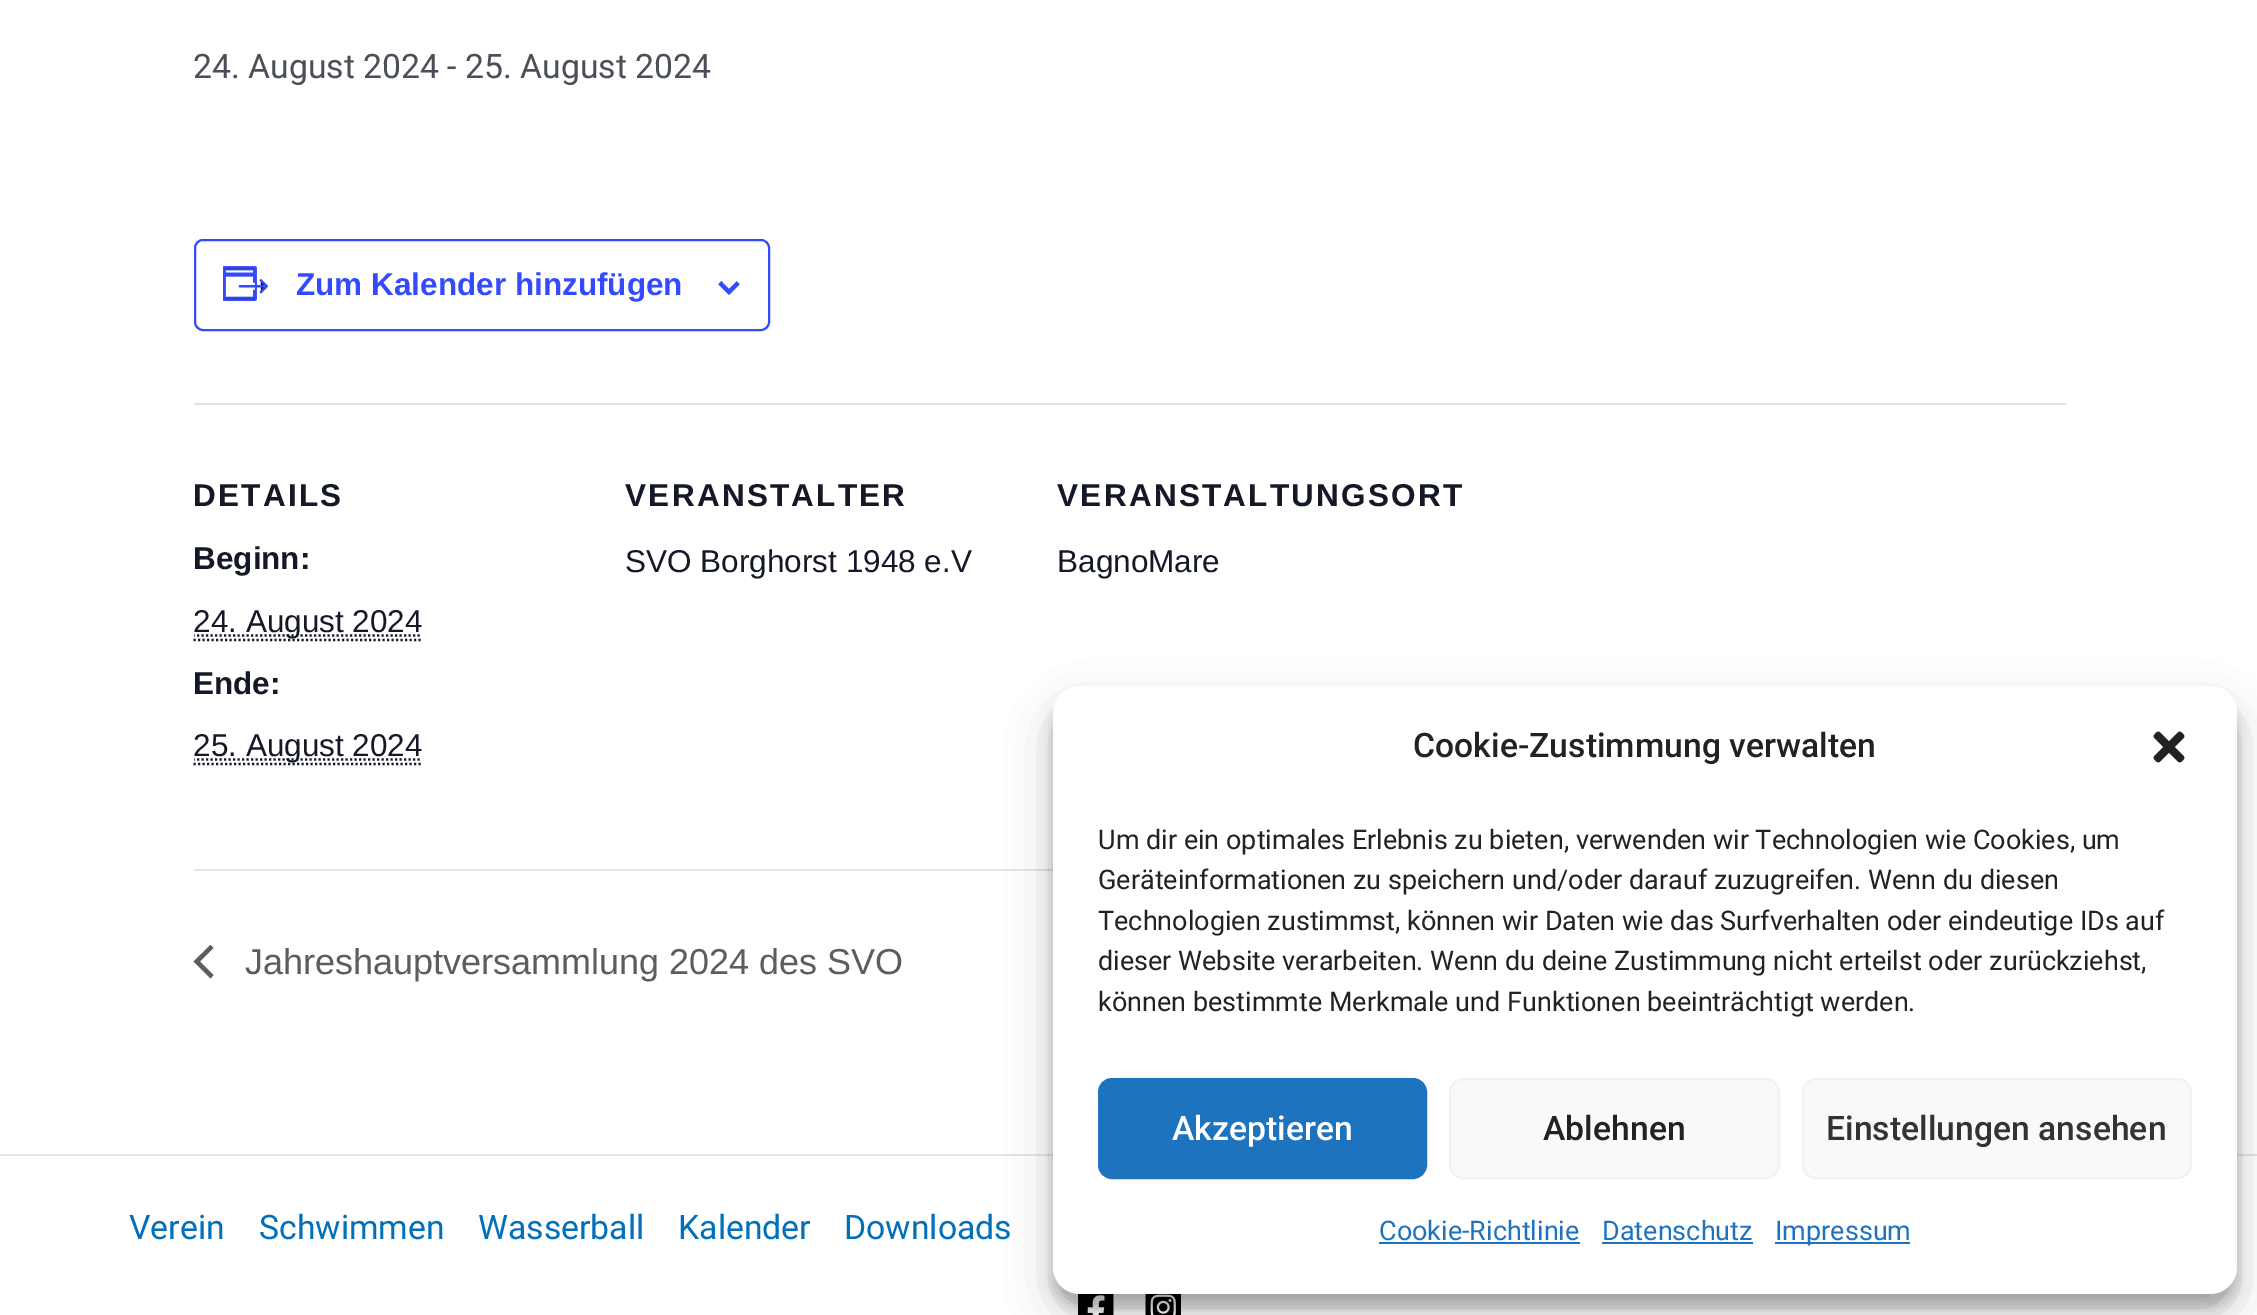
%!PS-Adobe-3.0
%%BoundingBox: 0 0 2257 1315
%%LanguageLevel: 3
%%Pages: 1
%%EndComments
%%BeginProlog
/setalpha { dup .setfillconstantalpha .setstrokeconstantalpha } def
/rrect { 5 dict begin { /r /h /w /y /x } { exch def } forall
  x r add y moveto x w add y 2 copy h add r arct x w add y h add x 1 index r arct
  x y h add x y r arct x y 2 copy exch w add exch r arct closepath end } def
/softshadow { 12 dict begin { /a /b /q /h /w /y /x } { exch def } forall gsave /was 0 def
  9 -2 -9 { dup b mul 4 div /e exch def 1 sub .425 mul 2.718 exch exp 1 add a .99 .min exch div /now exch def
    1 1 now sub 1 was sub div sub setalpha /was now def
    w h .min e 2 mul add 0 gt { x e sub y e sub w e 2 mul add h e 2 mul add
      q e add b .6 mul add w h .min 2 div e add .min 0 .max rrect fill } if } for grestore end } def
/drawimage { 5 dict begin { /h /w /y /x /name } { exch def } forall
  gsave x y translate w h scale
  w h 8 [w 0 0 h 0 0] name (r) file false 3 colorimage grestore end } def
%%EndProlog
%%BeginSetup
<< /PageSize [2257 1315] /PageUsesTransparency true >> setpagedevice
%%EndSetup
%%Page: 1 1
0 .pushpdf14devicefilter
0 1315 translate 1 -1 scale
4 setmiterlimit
1 setgray
0 0 2257 1315 rectfill
0.2 0.29 1 setrgbcolor
2 setlinewidth
195 240 574 90 8 rrect stroke
(images/1.raw) 223 266 45 35 drawimage
(images/2.raw) 718 281 22 14 drawimage
0.894 setgray
194 403 1872 2 rectfill
0.078 0.094 0.153 setrgbcolor
2.2 setlinewidth
[2.25 2.25] 0 setdash
newpath 193.5 640 moveto 423 640 lineto stroke
gsave
194 167 1872 652 rectclip
newpath 192.5 635.5 moveto 422 635.5 lineto stroke
grestore
newpath 193.5 764 moveto 423 764 lineto stroke
gsave
194 167 1872 652 rectclip
newpath 192.5 759.5 moveto 422 759.5 lineto stroke
grestore
0.894 setgray
194 869 859 2 rectfill
0.365 setgray
newpath 213.5 975 moveto 210.5 978.5 lineto 193.5 961.5 lineto 210.5 945 lineto 213.5 948 lineto 200 961.5 lineto closepath fill
0.898 setgray
0 1154 2257 2 rectfill
(images/3.raw) 1078 1293 36 22 drawimage
(images/4.raw) 1145 1294 36 21 drawimage
0 setgray
1053 700 1184 607 27 7 0.23 softshadow
1053 709 1184 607 27 22.5 0.19 softshadow
1 setgray
1053 686 1184 608 27 rrect fill
(images/5.raw) 2153 731 32 32 drawimage
0.118 0.451 0.745 setrgbcolor
1099 1079 327 99 13 rrect gsave fill grestore
2 setlinewidth
[] 0 setdash
stroke
0.976 setgray
1450 1079 329 99 13 rrect gsave fill grestore
0.949 setgray
stroke
0.976 setgray
1803 1079 388 99 13 rrect gsave fill grestore
0.949 setgray
stroke
0.118 0.451 0.745 setrgbcolor
1379 1242 201 2 rectfill
1602 1242 151 2 rectfill
1775 1242 135 2 rectfill
/Roboto-Regular [33.75 0 0 -33.75 0 0] selectfont
0.294 0.31 0.345 setrgbcolor
193 78 moveto (24. August 2024 - 25. August 2024) show
/LiberationSans-Bold [31.5 0 0 -31.5 0 0] selectfont
0.2 0.29 1 setrgbcolor
296 295 moveto (Zum Kalender hinzufügen) show
0.078 0.094 0.153 setrgbcolor
193 506 moveto 2.25 0 (DETAILS) ashow
193 569 moveto (Beginn:) show
/LiberationSans-Regular [31.5 0 0 -31.5 0 0] selectfont
193 632 moveto (24. August 2024) show
/LiberationSans-Bold [31.5 0 0 -31.5 0 0] selectfont
193 694 moveto (Ende:) show
/LiberationSans-Regular [31.5 0 0 -31.5 0 0] selectfont
193 756 moveto (25. August 2024) show
/LiberationSans-Bold [31.5 0 0 -31.5 0 0] selectfont
625 506 moveto 2.25 0 (VERANSTALTER) ashow
/LiberationSans-Regular [31.5 0 0 -31.5 0 0] selectfont
625 572 moveto (SVO Borghorst 1948 e.V) show
/LiberationSans-Bold [31.5 0 0 -31.5 0 0] selectfont
1057 506 moveto 2.25 0 (VERANSTALTUNGSORT) ashow
/LiberationSans-Regular [31.5 0 0 -31.5 0 0] selectfont
1057 572 moveto (BagnoMare) show
/LiberationSans-Regular [36 0 0 -36 0 0] selectfont
0.365 setgray
245 974 moveto (Jahreshauptversammlung 2024 des SVO) show
/Roboto-Regular [33.75 0 0 -33.75 0 0] selectfont
0.004 0.439 0.725 setrgbcolor
129 1239 moveto (Verein) show
259 1239 moveto (Schwimmen) show
478 1239 moveto (Wasserball) show
678 1239 moveto (Kalender) show
844 1239 moveto (Downloads) show
/Roboto-Medium [33.75 0 0 -33.75 0 0] selectfont
0.133 setgray
1413 757 moveto (Cookie-Zustimmung verwalten) show
/Roboto-Regular [27 0 0 -27 0 0] selectfont
1098 849 moveto (Um dir ein optimales Erlebnis zu bieten, verwenden wir Technologien wie Cookies, um) show
1098 889 moveto (Geräteinformationen zu speichern und/oder darauf zuzugreifen. Wenn du diesen) show
1098 930 moveto (Technologien zustimmst, können wir Daten wie das Surfverhalten oder eindeutige IDs auf) show
1098 970 moveto (dieser Website verarbeiten. Wenn du deine Zustimmung nicht erteilst oder zurückziehst,) show
1098 1011 moveto (können bestimmte Merkmale und Funktionen beeinträchtigt werden.) show
/Roboto-Medium [33.75 0 0 -33.75 0 0] selectfont
1 setgray
1172 1140 moveto (Akzeptieren) show
0.133 setgray
1543 1140 moveto (Ablehnen) show
0.2 setgray
1826 1140 moveto (Einstellungen ansehen) show
/Roboto-Regular [27 0 0 -27 0 0] selectfont
0.118 0.451 0.745 setrgbcolor
1379 1240 moveto (Cookie-Richtlinie) show
1602 1240 moveto (Datenschutz) show
1775 1240 moveto (Impressum) show
.poppdf14devicefilter showpage
%%EOF
